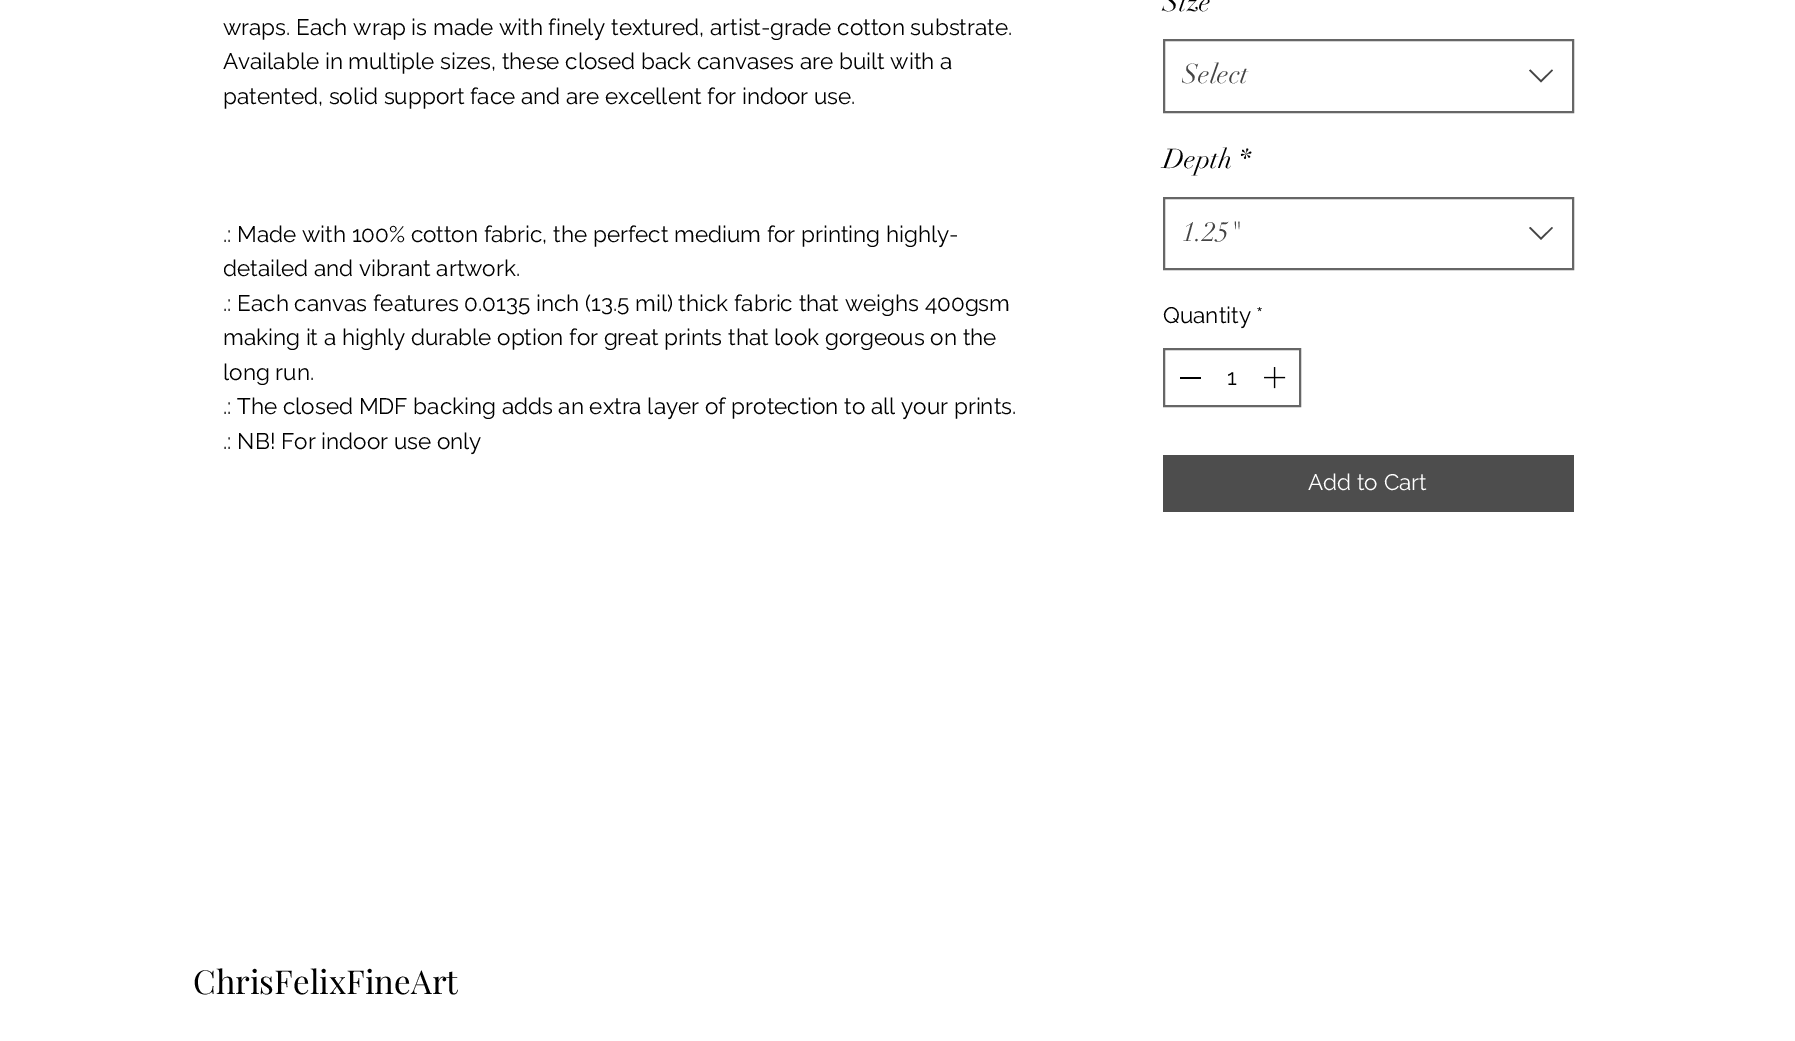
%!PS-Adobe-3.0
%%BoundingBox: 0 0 1795 1041
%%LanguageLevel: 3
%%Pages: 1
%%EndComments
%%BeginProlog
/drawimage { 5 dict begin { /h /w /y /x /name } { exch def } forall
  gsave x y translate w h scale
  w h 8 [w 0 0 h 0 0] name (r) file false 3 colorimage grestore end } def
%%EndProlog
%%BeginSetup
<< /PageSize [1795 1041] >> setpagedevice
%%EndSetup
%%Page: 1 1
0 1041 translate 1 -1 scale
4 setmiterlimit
1 setgray
0 0 1795 1041 rectfill
0.4 setgray
2 setlinewidth
1164 40 409 72 rectstroke
0.267 setgray
newpath 1552 69.5 moveto 1553 70.5 lineto 1541 82.5 lineto 1529 70.5 lineto 1530.5 69.5 lineto 1541 80 lineto closepath eofill
0.4 setgray
1164 198 409 71 rectstroke
0.267 setgray
newpath 1552 227 moveto 1553 228 lineto 1541 240 lineto 1529 228 lineto 1530.5 227 lineto 1541 237.5 lineto closepath eofill
0.4 setgray
1164 349 136 57 rectstroke
0 setgray
1180 377 21 2 rectfill
(images/1.raw) 1264 367 22 22 drawimage
0.302 setgray
1163 455 411 57 rectfill
/Raleway-Regular [22.5 0 0 -22.5 0 0] selectfont
0 setgray
223 35 moveto (wraps. Each wrap is made with finely textured, artist-grade cotton substrate.) show
223 69 moveto (Available in multiple sizes, these closed back canvases are built with a) show
223 104 moveto (patented, solid support face and are excellent for indoor use.) show
223 242 moveto (.: Made with 100% cotton fabric, the perfect medium for printing highly-) show
gsave
224 0 819 459 rectclip
223 276 moveto (detailed and vibrant artwork.) show
grestore
223 311 moveto (.: Each canvas features 0.0135 inch \(13.5 mil\) thick fabric that weighs 400gsm) show
223 345 moveto (making it a highly durable option for great prints that look gorgeous on the) show
223 380 moveto (long run.) show
223 414 moveto (.: The closed MDF backing adds an extra layer of protection to all your prints.) show
223 449 moveto (.: NB! For indoor use only) show
/didot-Regular [27 0 0 -27 0 0] selectfont
1163 11 moveto (Size) show
gsave
1182 53 333 46 rectclip
0.267 setgray
1182 83 moveto (Select) show
grestore
1163 168 moveto (Depth) show
1239 168 moveto (*) show
0.267 setgray
1182 241 moveto (1.25") show
/Raleway-Regular [22.5 0 0 -22.5 0 0] selectfont
0 setgray
1163 323 moveto (Quantity *) show
1227 385 moveto (1) show
1 setgray
1308 490 moveto (Add to Cart) show
/PlayfairDisplay-Regular [33 0 0 -33 0 0] selectfont
0 setgray
193 994 moveto (ChrisFelixFineArt) show
showpage
%%EOF
